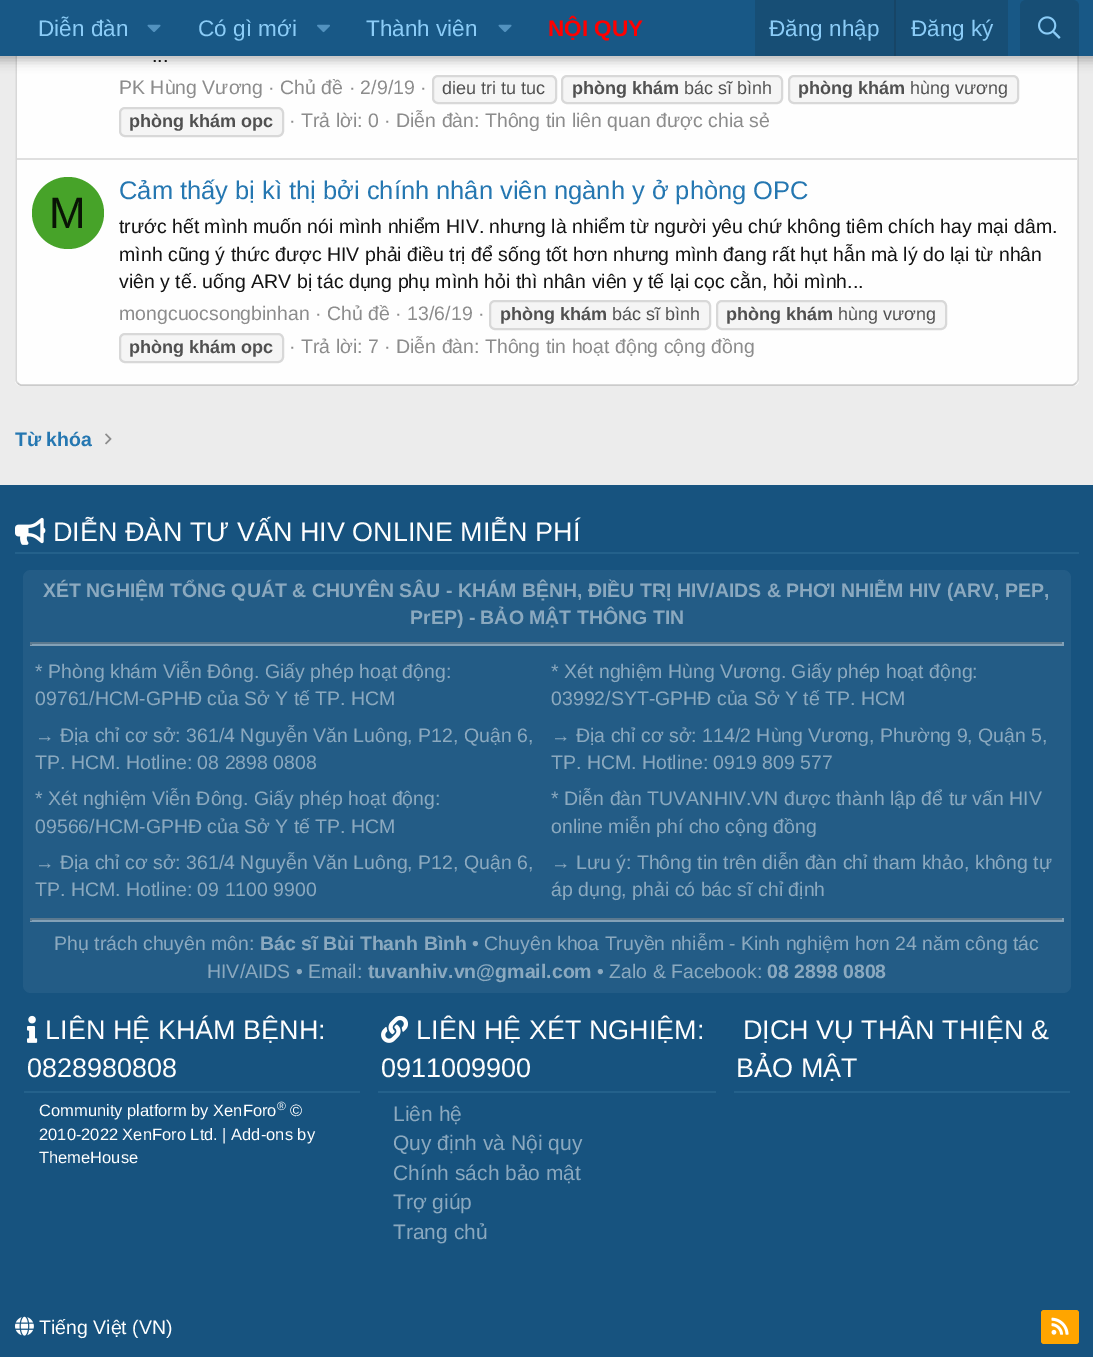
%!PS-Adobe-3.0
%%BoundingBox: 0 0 1093 1357
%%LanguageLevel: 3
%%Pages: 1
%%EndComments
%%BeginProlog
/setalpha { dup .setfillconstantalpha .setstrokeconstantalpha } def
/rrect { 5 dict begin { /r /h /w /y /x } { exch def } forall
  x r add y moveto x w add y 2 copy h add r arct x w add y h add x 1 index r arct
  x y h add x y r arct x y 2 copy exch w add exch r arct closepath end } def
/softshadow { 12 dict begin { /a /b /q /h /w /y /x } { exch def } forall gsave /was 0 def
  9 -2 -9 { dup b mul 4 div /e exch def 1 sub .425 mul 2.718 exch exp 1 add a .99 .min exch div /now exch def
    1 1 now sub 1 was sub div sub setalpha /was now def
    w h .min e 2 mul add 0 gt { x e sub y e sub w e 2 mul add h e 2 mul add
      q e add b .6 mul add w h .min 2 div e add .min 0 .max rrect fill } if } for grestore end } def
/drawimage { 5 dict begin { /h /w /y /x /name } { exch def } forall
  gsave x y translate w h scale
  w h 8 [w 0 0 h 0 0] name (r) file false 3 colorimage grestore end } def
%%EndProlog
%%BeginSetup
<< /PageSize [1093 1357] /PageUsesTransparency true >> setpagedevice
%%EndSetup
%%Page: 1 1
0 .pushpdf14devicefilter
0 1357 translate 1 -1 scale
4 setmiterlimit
0.925 setgray
0 0 1093 1357 rectfill
0.996 setgray
15 -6 1064 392 6 rrect fill
0.847 setgray
1.5 setlinewidth
newpath 1076 -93.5 moveto 1077 -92.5 1078 -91.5 1078 -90 curveto 1078 379.5 lineto 1078 381 1077 382 1076 383 curveto stroke
0.796 setgray
newpath 1076 383 moveto 1075 384 1074 385 1072.5 385 curveto 21 385 lineto 19.5 385 18.5 384 17.5 383 curveto stroke
0.847 setgray
newpath 17.5 383 moveto 16.5 382 16 381 16 379.5 curveto 16 -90 lineto 16 -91.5 16.5 -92.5 17.5 -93.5 curveto stroke
0.961 setgray
433 76 123 27 5 rrect gsave fill grestore
0.847 setgray
2 setlinewidth
stroke
0.961 setgray
562 76 220 27 5 rrect gsave fill grestore
0.847 setgray
stroke
0.961 setgray
789 76 229 27 5 rrect gsave fill grestore
0.847 setgray
stroke
0 setgray
-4 -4 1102 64 0 6 0.3 softshadow
0.094 0.345 0.525 setrgbcolor
0 0 1093 56 rectfill
(images/1.raw) 147 24 14 8 drawimage
(images/2.raw) 317 24 13 9 drawimage
(images/1.raw) 498 24 14 8 drawimage
0.09 0.306 0.459 setrgbcolor
755 0 253 56 rectfill
0.09 0.271 0.4 setrgbcolor
894 0 2 56 rectfill
0.09 0.306 0.459 setrgbcolor
newpath 1026 0 moveto 1073 0 lineto 1076.5 0 1079 2.5 1079 6 curveto 1079 56 lineto 1020 56 lineto 1020 6 lineto 1020 2.5 1022.5 0 1026 0 curveto closepath fill
(images/3.raw) 1038 16 23 23 drawimage
0.961 setgray
120 108 163 28 5 rrect gsave fill grestore
0.847 setgray
stroke
0.875 setgray
17 158 1060 2 rectfill
0.278 0.639 0.161 setrgbcolor
newpath 68 213 36 0 360 arc closepath fill
0.961 setgray
490 301 220 28 5 rrect gsave fill grestore
0.847 setgray
stroke
0.961 setgray
717 301 229 28 5 rrect gsave fill grestore
0.847 setgray
stroke
0.961 setgray
120 334 163 28 5 rrect gsave fill grestore
0.847 setgray
stroke
(images/4.raw) 105 433 7 12 drawimage
0.09 0.325 0.498 setrgbcolor
0 485 1093 872 rectfill
0.141 0.38 0.545 setrgbcolor
15 552 1064 2 rectfill
(images/5.raw) 15 517 31 28 drawimage
0.137 0.361 0.525 setrgbcolor
23 570 1048 423 8 rrect fill
0.357 0.475 0.561 setrgbcolor
30 642 1034 2 rectfill
0.514 0.631 0.718 setrgbcolor
1062 642 2 3 rectfill
30 644 1034 2 rectfill
0.357 0.475 0.561 setrgbcolor
30 642 2 3 rectfill
30 918 1034 2 rectfill
0.514 0.631 0.718 setrgbcolor
1062 918 2 3 rectfill
30 920 1034 2 rectfill
0.357 0.475 0.561 setrgbcolor
30 918 2 3 rectfill
0.141 0.38 0.545 setrgbcolor
24 1091 336 2 rectfill
(images/6.raw) 27 1015 11 28 drawimage
378 1091 338 2 rectfill
(images/7.raw) 381 1015 27 28 drawimage
734 1091 336 2 rectfill
(images/8.raw) 15 1316 19 20 drawimage
1 0.647 0 setrgbcolor
1041 1310 38 34 3 rrect fill
(images/9.raw) 1051 1317 18 18 drawimage
/LiberationSans-Regular [22.5 0 0 -22.5 0 0] selectfont
0.545 0.8 0.969 setrgbcolor
38 36 moveto (Diễn đàn) show
198 36 moveto (Có gì mới) show
366 36 moveto (Thành viên) show
/LiberationSans-Bold [22.5 0 0 -22.5 0 0] selectfont
1 0 0 setrgbcolor
548 36 moveto (NỘI QUY) show
/LiberationSans-Regular [22.5 0 0 -22.5 0 0] selectfont
0.545 0.8 0.969 setrgbcolor
769 36 moveto (Đăng nhập) show
911 36 moveto (Đăng ký) show
/LiberationSans-Regular [19.5 0 0 -19.5 0 0] selectfont
0.078 setgray
152 62 moveto (...) show
0.549 setgray
119 94 moveto (PK Hùng Vương · Chủ đề · 2/9/19 ·) show
/LiberationSans-Regular [18 0 0 -18 0 0] selectfont
0.314 setgray
442 94 moveto (dieu tri tu tuc) show
/LiberationSans-Bold [18 0 0 -18 0 0] selectfont
572 94 moveto (phòng khám) show
/LiberationSans-Regular [18 0 0 -18 0 0] selectfont
684 94 moveto (bác sĩ bình) show
/LiberationSans-Bold [18 0 0 -18 0 0] selectfont
798 94 moveto (phòng khám) show
/LiberationSans-Regular [18 0 0 -18 0 0] selectfont
910 94 moveto (hùng vương) show
/LiberationSans-Bold [18 0 0 -18 0 0] selectfont
129 127 moveto (phòng khám opc) show
/LiberationSans-Regular [19.5 0 0 -19.5 0 0] selectfont
0.549 setgray
289 127 moveto (· Trả lời: 0 · Diễn đàn: Thông tin liên quan được chia sẻ) show
/LiberationSans-Regular [44 0 0 -44 0 0] selectfont
0.035 0.078 0.02 setrgbcolor
49 228 moveto (M) show
/LiberationSans-Regular [25.5 0 0 -25.5 0 0] selectfont
0.145 0.467 0.694 setrgbcolor
119 199 moveto (Cảm thấy bị kì thị bởi chính nhân viên ngành y ở phòng OPC) show
/LiberationSans-Regular [19.5 0 0 -19.5 0 0] selectfont
0.078 setgray
119 233 moveto (trước hết mình muốn nói mình nhiểm HIV. nhưng là nhiểm từ người yêu chứ không tiêm chích hay mại dâm.) show
119 261 moveto (mình cũng ý thức được HIV phải điều trị để sống tốt hơn nhưng mình đang rất hụt hẫn mà lý do lại từ nhân) show
119 288 moveto (viên y tế. uống ARV bị tác dụng phụ mình hỏi thì nhân viên y tế lại cọc cằn, hỏi mình...) show
0.549 setgray
119 320 moveto (mongcuocsongbinhan · Chủ đề · 13/6/19 ·) show
/LiberationSans-Bold [18 0 0 -18 0 0] selectfont
0.314 setgray
500 320 moveto (phòng khám) show
/LiberationSans-Regular [18 0 0 -18 0 0] selectfont
612 320 moveto (bác sĩ bình) show
/LiberationSans-Bold [18 0 0 -18 0 0] selectfont
726 320 moveto (phòng khám) show
/LiberationSans-Regular [18 0 0 -18 0 0] selectfont
838 320 moveto (hùng vương) show
/LiberationSans-Bold [18 0 0 -18 0 0] selectfont
129 353 moveto (phòng khám opc) show
/LiberationSans-Regular [19.5 0 0 -19.5 0 0] selectfont
0.549 setgray
289 353 moveto (· Trả lời: 7 · Diễn đàn: Thông tin hoạt động cộng đồng) show
/LiberationSans-Bold [19.5 0 0 -19.5 0 0] selectfont
0.145 0.467 0.694 setrgbcolor
15 446 moveto (Từ khóa) show
/LiberationSans-Regular [27 0 0 -27 0 0] selectfont
0.996 setgray
53 541 moveto (DIỄN ĐÀN TƯ VẤN HIV ONLINE MIỄN PHÍ) show
/LiberationSans-Bold [19.5 0 0 -19.5 0 0] selectfont
0.545 0.663 0.749 setrgbcolor
43 597 moveto (XÉT NGHIỆM TỔNG QUÁT & CHUYÊN SÂU - KHÁM BỆNH, ĐIỀU TRỊ HIV/AIDS & PHƠI NHIỄM HIV \(ARV, PEP,) show
410 624 moveto (PrEP\) - BẢO MẬT THÔNG TIN) show
/LiberationSans-Regular [19.5 0 0 -19.5 0 0] selectfont
35 678 moveto (* Phòng khám Viễn Đông. Giấy phép hoạt động:) show
35 705 moveto (09761/HCM-GPHĐ của Sở Y tế TP. HCM) show
35 742 moveto (→ Địa chỉ cơ sở: 361/4 Nguyễn Văn Luông, P12, Quận 6,) show
35 769 moveto (TP. HCM. Hotline: 08 2898 0808) show
35 805 moveto (* Xét nghiệm Viễn Đông. Giấy phép hoạt động:) show
35 833 moveto (09566/HCM-GPHĐ của Sở Y tế TP. HCM) show
35 869 moveto (→ Địa chỉ cơ sở: 361/4 Nguyễn Văn Luông, P12, Quận 6,) show
35 896 moveto (TP. HCM. Hotline: 09 1100 9900) show
551 678 moveto (* Xét nghiệm Hùng Vương. Giấy phép hoạt động:) show
551 705 moveto (03992/SYT-GPHĐ của Sở Y tế TP. HCM) show
551 742 moveto (→ Địa chỉ cơ sở: 114/2 Hùng Vương, Phường 9, Quận 5,) show
551 769 moveto (TP. HCM. Hotline: 0919 809 577) show
551 805 moveto (* Diễn đàn TUVANHIV.VN được thành lập để tư vấn HIV) show
551 833 moveto (online miễn phí cho cộng đồng) show
551 869 moveto (→ Lưu ý: Thông tin trên diễn đàn chỉ tham khảo, không tự) show
551 896 moveto (áp dụng, phải có bác sĩ chỉ định) show
54 950 moveto (Phụ trách chuyên môn:) show
/LiberationSans-Bold [19.5 0 0 -19.5 0 0] selectfont
260 950 moveto (Bác sĩ Bùi Thanh Bình) show
/LiberationSans-Regular [19.5 0 0 -19.5 0 0] selectfont
472 950 moveto (• Chuyên khoa Truyền nhiễm - Kinh nghiệm hơn 24 năm công tác) show
207 978 moveto (HIV/AIDS • Email:) show
/LiberationSans-Bold [19.5 0 0 -19.5 0 0] selectfont
368 978 moveto (tuvanhiv.vn@gmail.com) show
/LiberationSans-Regular [19.5 0 0 -19.5 0 0] selectfont
597 978 moveto (• Zalo & Facebook:) show
/LiberationSans-Bold [19.5 0 0 -19.5 0 0] selectfont
767 978 moveto (08 2898 0808) show
/LiberationSans-Regular [27 0 0 -27 0 0] selectfont
0.996 setgray
45 1039 moveto (LIÊN HỆ KHÁM BỆNH:) show
27 1077 moveto (0828980808) show
/LiberationSans-Regular [16.5 0 0 -16.5 0 0] selectfont
39 1116 moveto (Community platform by XenForo) show
/LiberationSans-Regular [12 0 0 -12 0 0] selectfont
277 1110 moveto (®) show
/LiberationSans-Regular [16.5 0 0 -16.5 0 0] selectfont
290 1116 moveto (©) show
39 1140 moveto (2010-2022 XenForo Ltd. | Add-ons by) show
39 1163 moveto (ThemeHouse) show
/LiberationSans-Regular [27 0 0 -27 0 0] selectfont
416 1039 moveto (LIÊN HỆ XÉT NGHIỆM:) show
381 1077 moveto (0911009900) show
/LiberationSans-Regular [21 0 0 -21 0 0] selectfont
0.545 0.663 0.749 setrgbcolor
393 1121 moveto (Liên hệ) show
393 1150 moveto (Quy định và Nội quy) show
393 1180 moveto (Chính sách bảo mật) show
393 1209 moveto (Trợ giúp) show
393 1239 moveto (Trang chủ) show
/LiberationSans-Regular [27 0 0 -27 0 0] selectfont
0.996 setgray
743 1039 moveto (DỊCH VỤ THÂN THIỆN &) show
736 1077 moveto (BẢO MẬT) show
/LiberationSans-Regular [19.5 0 0 -19.5 0 0] selectfont
39 1334 moveto (Tiếng Việt \(VN\)) show
.poppdf14devicefilter showpage
%%EOF
